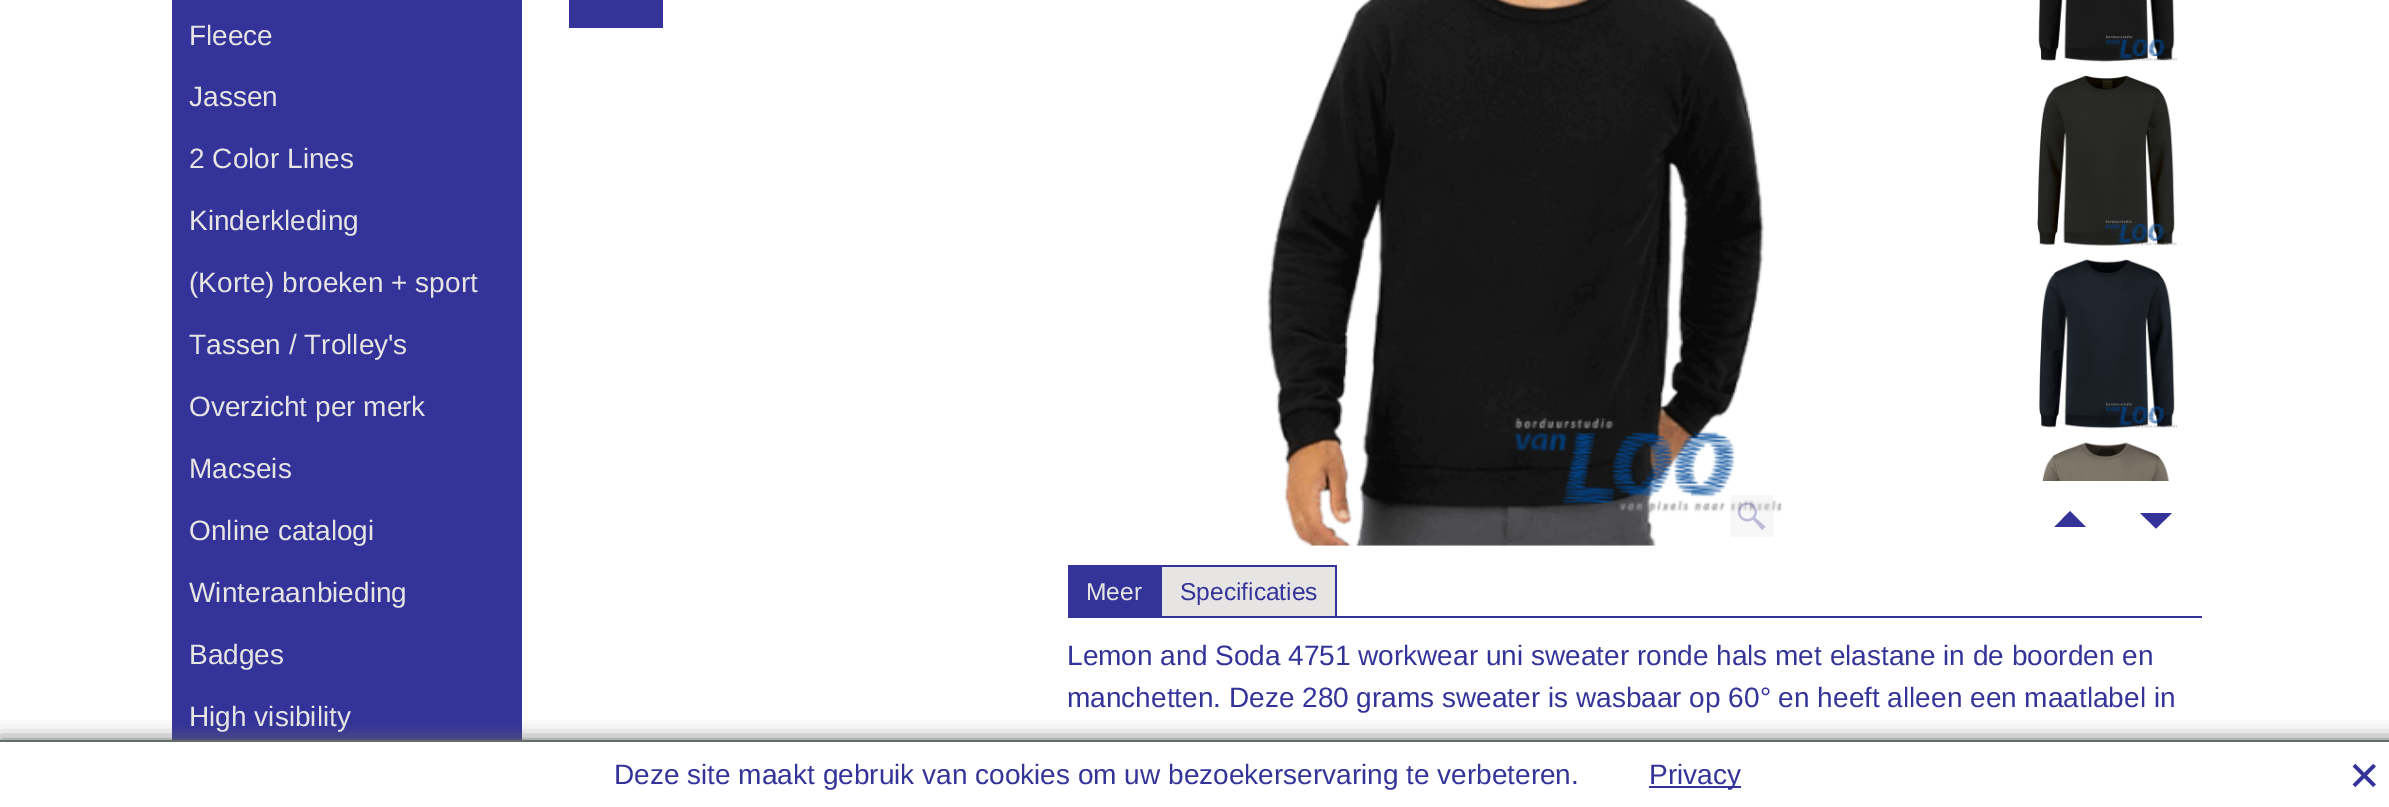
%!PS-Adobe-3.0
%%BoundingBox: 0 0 2389 807
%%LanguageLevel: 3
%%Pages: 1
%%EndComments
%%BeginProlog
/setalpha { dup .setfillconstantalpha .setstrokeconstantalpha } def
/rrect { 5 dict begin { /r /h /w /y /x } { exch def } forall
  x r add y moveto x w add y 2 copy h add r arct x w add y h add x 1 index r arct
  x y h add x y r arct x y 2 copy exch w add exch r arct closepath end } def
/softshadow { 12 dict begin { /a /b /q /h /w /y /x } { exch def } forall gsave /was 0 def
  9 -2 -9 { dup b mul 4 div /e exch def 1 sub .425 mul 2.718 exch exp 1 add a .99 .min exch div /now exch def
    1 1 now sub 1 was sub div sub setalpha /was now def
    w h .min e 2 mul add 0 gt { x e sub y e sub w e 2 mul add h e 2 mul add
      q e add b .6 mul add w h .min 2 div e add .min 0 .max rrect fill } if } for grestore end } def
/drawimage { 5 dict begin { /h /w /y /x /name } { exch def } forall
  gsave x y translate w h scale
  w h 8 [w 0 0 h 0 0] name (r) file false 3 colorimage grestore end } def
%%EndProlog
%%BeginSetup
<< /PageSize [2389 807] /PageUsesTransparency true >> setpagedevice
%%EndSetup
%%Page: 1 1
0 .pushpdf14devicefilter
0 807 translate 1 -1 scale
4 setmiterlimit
1 setgray
0 0 2389 807 rectfill
0.2 0.2 0.6 setrgbcolor
172 0 350 740 rectfill
569 0 94 28 rectfill
(images/1.raw) 1267 0 515 546 drawimage
0.3 setalpha
0.906 0.898 0.894 setrgbcolor
1731 495 42 42 rectfill
1 setalpha
(images/2.raw) 1737 502 29 28 drawimage
(images/3.raw) 2038 0 139 62 drawimage
(images/4.raw) 2037 75 140 171 drawimage
(images/5.raw) 2039 259 138 170 drawimage
(images/6.raw) 2042 442 128 39 drawimage
0.2 0.2 0.6 setrgbcolor
newpath 2086 527 moveto 2070 511 lineto 2054.5 527 lineto closepath fill
newpath 2140 513 moveto 2156 528.5 lineto 2172 513 lineto closepath fill
1068 565 92 53 rectfill
0.906 0.898 0.894 setrgbcolor
1162 567 173 49 rectfill
0.2 0.2 0.6 setrgbcolor
1160 565 177 2 rectfill
1335 565 2 51 rectfill
1160 565 2 51 rectfill
1160 616 1042 2 rectfill
0.4 setgray
0 740 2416 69 0 9 1 softshadow
1 setgray
0 742 2389 65 rectfill
0.384 0.427 0.4 setrgbcolor
0 740 2389 2 rectfill
0.2 0.2 0.6 setrgbcolor
1649 786 92 2 rectfill
(images/7.raw) 2352 763 24 25 drawimage
/LiberationSans-Regular [28 0 0 -28 0 0] selectfont
0.906 0.898 0.894 setrgbcolor
189 45 moveto (Fleece) show
189 106 moveto (Jassen) show
189 168 moveto (2 Color Lines) show
189 230 moveto (Kinderkleding) show
189 292 moveto (\(Korte\) broeken + sport) show
189 354 moveto (Tassen / Trolley's) show
189 416 moveto (Overzicht per merk) show
189 478 moveto (Macseis) show
189 540 moveto (Online catalogi) show
189 602 moveto (Winteraanbieding) show
189 664 moveto (Badges) show
189 726 moveto (High visibility) show
/LiberationSans-Regular [24.5 0 0 -24.5 0 0] selectfont
1086 600 moveto (Meer) show
0.2 0.2 0.6 setrgbcolor
1180 600 moveto (Specificaties) show
/LiberationSans-Regular [28 0 0 -28 0 0] selectfont
1067 665 moveto (Lemon and Soda 4751 workwear uni sweater ronde hals met elastane in de boorden en) show
1067 707 moveto (manchetten. Deze 280 grams sweater is wasbaar op 60° en heeft alleen een maatlabel in) show
614 784 moveto (Deze site maakt gebruik van cookies om uw bezoekerservaring te verbeteren.) show
1649 784 moveto (Privacy) show
.poppdf14devicefilter showpage
%%EOF
